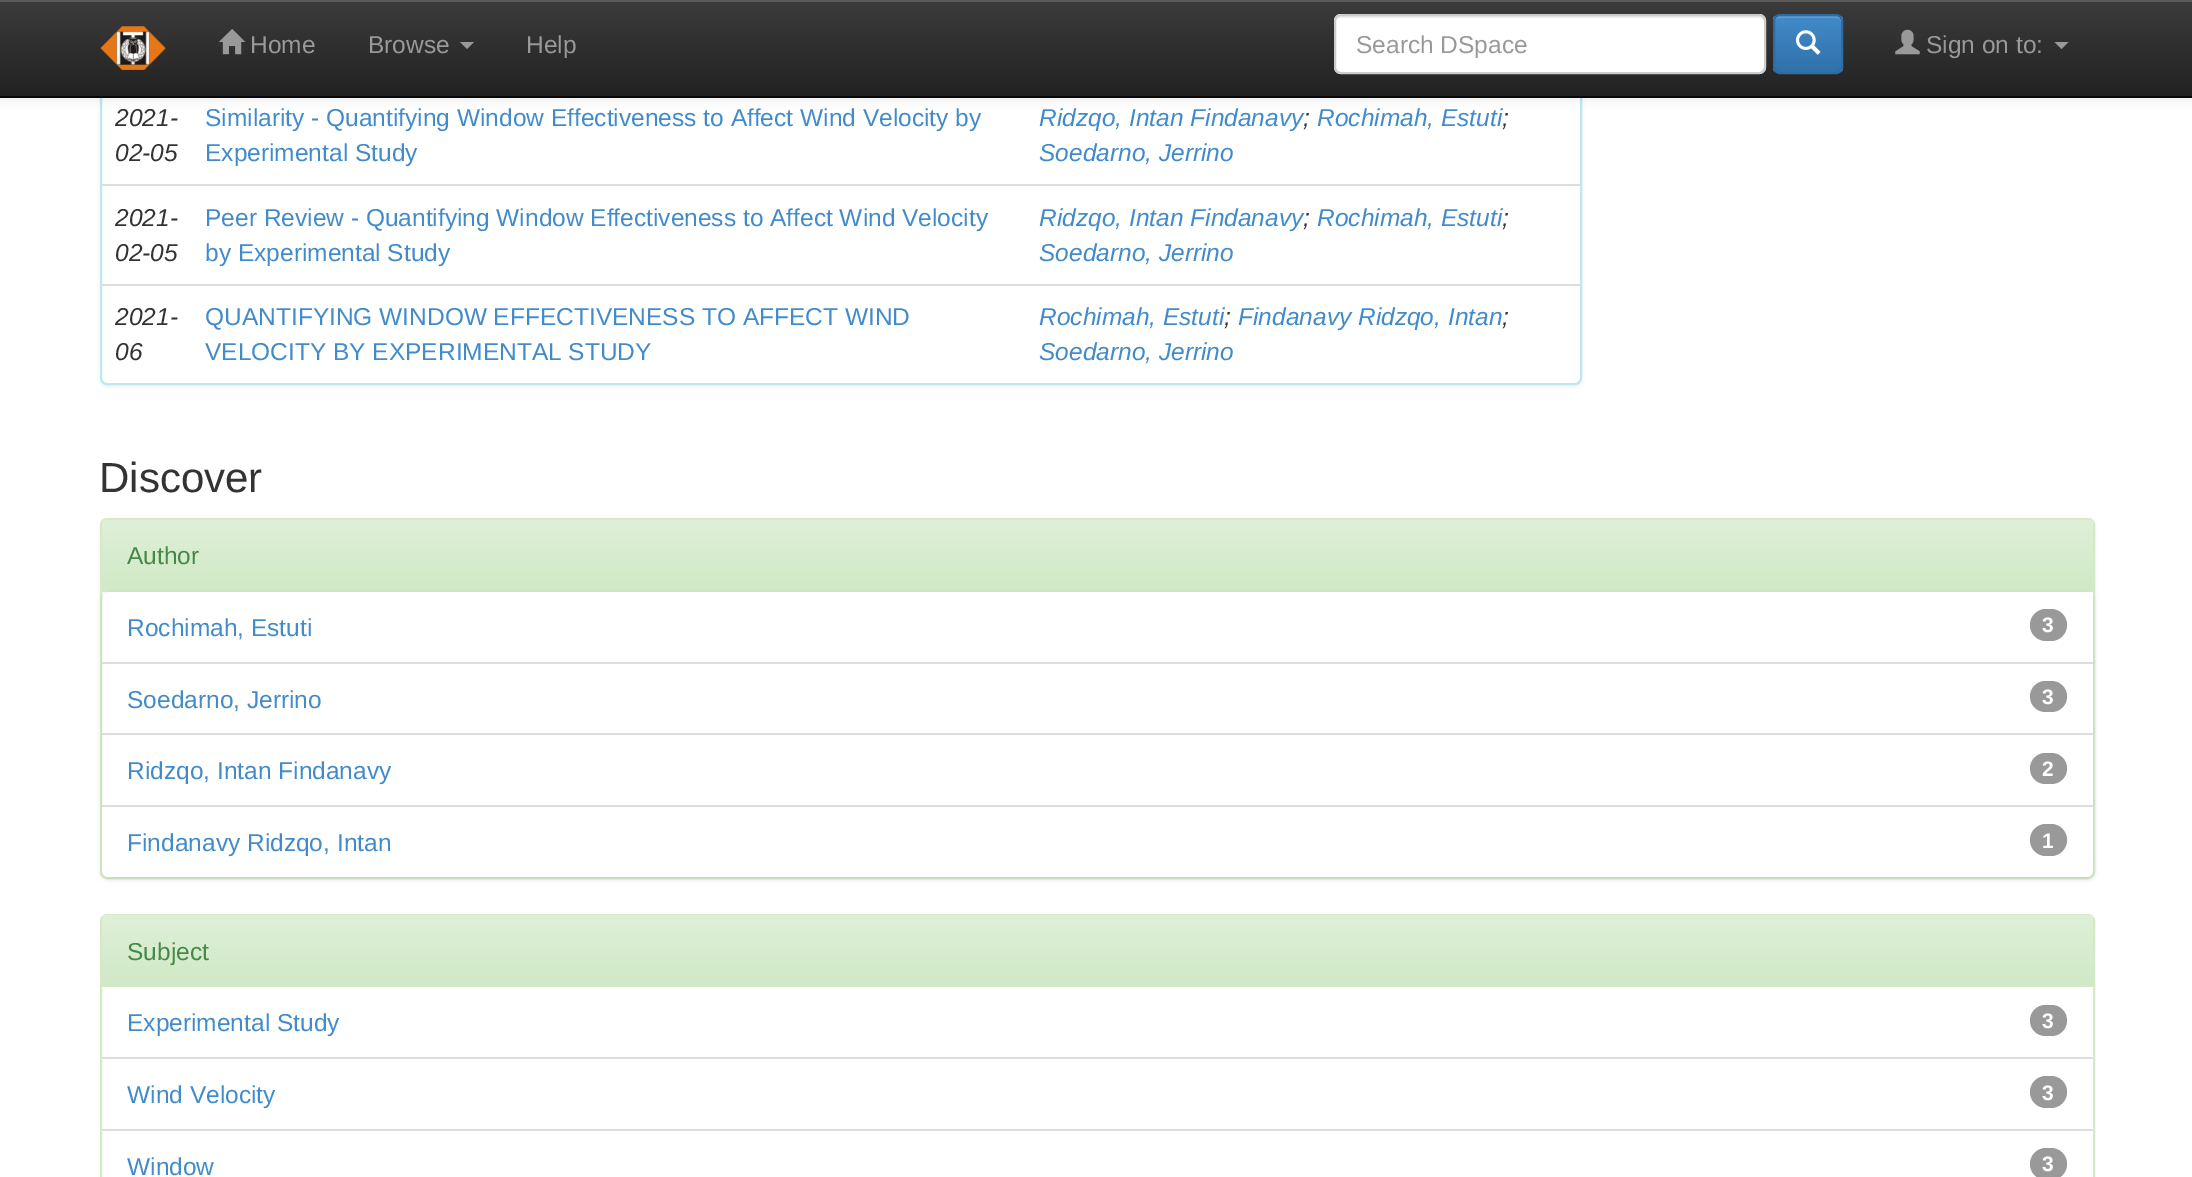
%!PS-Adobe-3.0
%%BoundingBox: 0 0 2192 1177
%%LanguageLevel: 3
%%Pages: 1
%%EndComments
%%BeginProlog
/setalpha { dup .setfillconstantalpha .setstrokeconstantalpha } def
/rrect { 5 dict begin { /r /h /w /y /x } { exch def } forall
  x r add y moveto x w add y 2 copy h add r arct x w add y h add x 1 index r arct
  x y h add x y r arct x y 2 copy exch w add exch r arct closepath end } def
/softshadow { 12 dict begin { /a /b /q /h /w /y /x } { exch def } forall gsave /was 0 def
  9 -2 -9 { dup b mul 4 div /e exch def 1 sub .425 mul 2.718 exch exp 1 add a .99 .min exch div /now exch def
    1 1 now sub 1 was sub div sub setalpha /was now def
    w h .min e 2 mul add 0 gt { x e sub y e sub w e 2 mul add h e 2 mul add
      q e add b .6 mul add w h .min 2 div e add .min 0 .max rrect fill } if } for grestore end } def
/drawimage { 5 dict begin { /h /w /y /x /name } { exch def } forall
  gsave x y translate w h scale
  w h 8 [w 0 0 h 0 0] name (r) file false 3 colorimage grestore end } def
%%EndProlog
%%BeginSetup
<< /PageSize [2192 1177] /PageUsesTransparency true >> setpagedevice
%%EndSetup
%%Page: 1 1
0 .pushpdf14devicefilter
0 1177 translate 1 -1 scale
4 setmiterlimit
1 setgray
0 0 2192 1177 rectfill
0 setgray
100 -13 1482 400 7 2 0.05 softshadow
1 setgray
101 -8 1480 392 6 rrect gsave fill grestore
0.737 0.91 0.945 setrgbcolor
2 setlinewidth
stroke
0 setgray
0 2 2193 98 0 4.5 0.07 softshadow
gsave newpath 0 2 moveto 2192 2 lineto 2192 96 lineto 0 96 lineto closepath clip newpath
<< /ShadingType 2 /ColorSpace /DeviceRGB /Coords [1096 0 1096 96] /Extend [true true] /Function << /FunctionType 2 /Domain [0 1] /C0 [0.235 0.235 0.235] /C1 [0.133 0.133 0.133] /N 1 >> >> shfill grestore
0.349 setgray
0 0 2192 2 rectfill
0.031 setgray
0 96 2192 2 rectfill
(images/1.raw) 100 26 66 44 drawimage
(images/2.raw) 219 29 27 26 drawimage
0.6 setgray
newpath 460 42 moveto 474 42 lineto 467 49 lineto closepath fill
1 setgray
1334 14 432 60 7 rrect fill
0.925 setgray
newpath 1340 18 moveto 1759 18 lineto 1762 18 1764 20 1764 23 curveto 1764 20 1763 16 1759 16 curveto 1340 16 lineto 1336 16 1335 20 1335 23 curveto 1335 20 1338 18 1340 18 curveto closepath fill
0.8 setgray
1335 15 430 58 6 rrect stroke
gsave
1773 14 70 60 7 rrect clip newpath
gsave newpath 1773 16 moveto 1843 16 lineto 1843 72 lineto 1773 72 lineto closepath clip newpath
<< /ShadingType 2 /ColorSpace /DeviceRGB /Coords [1808 16 1808 72] /Extend [true true] /Function << /FunctionType 2 /Domain [0 1] /C0 [0.259 0.545 0.792] /C1 [0.188 0.443 0.663] /N 1 >> >> shfill grestore
grestore
0.15 setalpha
1 setgray
newpath 1780 18 moveto 1836 18 lineto 1839 18 1841 20 1841 23 curveto 1841 21 lineto 1841 18 1839 16 1836 16 curveto 1780 16 lineto 1778 16 1775 18 1775 20 curveto 1776 19 1778 18 1780 18 curveto closepath fill
1 setalpha
0.176 0.424 0.635 setrgbcolor
1774 15 68 58 6 rrect stroke
(images/3.raw) 1796 30 25 25 drawimage
(images/4.raw) 1895 29 25 26 drawimage
0.6 setgray
newpath 2054.5 42 moveto 2068.5 42 lineto 2061.5 49 lineto closepath fill
0.867 setgray
100 184 1482 2 rectfill
100 284 1482 2 rectfill
0 setgray
100 520 1995 360 7 2 0.05 softshadow
1 setgray
101 519 1993 359 6 rrect gsave fill grestore
0.839 0.914 0.776 setrgbcolor
stroke
gsave newpath 107 520 moveto 2088 520 lineto 2091 520 2093 522 2093 525 curveto 2093 590 lineto 102 590 lineto 102 525 lineto 102 522 104 520 107 520 curveto closepath clip newpath
<< /ShadingType 2 /ColorSpace /DeviceRGB /Coords [1097 520 1097 590] /Extend [true true] /Function << /FunctionType 2 /Domain [0 1] /C0 [0.875 0.941 0.847] /C1 [0.816 0.914 0.776] /N 1 >> >> shfill grestore
102 590 1991 2 rectfill
gsave
newpath 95 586 moveto 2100 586 lineto 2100 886 lineto 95 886 lineto closepath 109 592 moveto 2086 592 lineto 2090 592 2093 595 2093 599 curveto 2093 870 lineto 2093 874 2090 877 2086 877 curveto 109 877 lineto 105 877 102 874 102 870 curveto 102 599 lineto 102 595 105 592 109 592 curveto closepath eoclip newpath
0 setgray
102 593 1991 286 7 2 0.07 softshadow
grestore
1 setgray
2090 592 3 4 rectfill
0.6 setgray
2030 609 37 32 16 rrect fill
0.867 setgray
102 662 1991 2 rectfill
102 733 1991 2 rectfill
0.6 setgray
2030 681 37 31 15.5 rrect fill
2030 753 37 31 15.5 rrect fill
1 setgray
newpath 102 805 moveto 2093 805 lineto 2093 870 lineto 2093 874 2090 877 2086 877 curveto 109 877 lineto 105 877 102 874 102 870 curveto closepath fill
0.867 setgray
102 805 1991 2 rectfill
0.6 setgray
2030 824 37 32 16 rrect fill
0.839 0.914 0.776 setrgbcolor
101 915 1993 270 6 rrect stroke
gsave newpath 107 915 moveto 2088 915 lineto 2091 915 2093 917 2093 920 curveto 2093 985 lineto 102 985 lineto 102 920 lineto 102 917 104 915 107 915 curveto closepath clip newpath
<< /ShadingType 2 /ColorSpace /DeviceRGB /Coords [1097 915 1097 985] /Extend [true true] /Function << /FunctionType 2 /Domain [0 1] /C0 [0.875 0.941 0.847] /C1 [0.816 0.914 0.776] /N 1 >> >> shfill grestore
102 985 1991 2 rectfill
0.867 setgray
102 1057 1991 2 rectfill
0.6 setgray
2030 1005 37 31 15.5 rrect fill
0.867 setgray
102 1129 1991 2 rectfill
0.6 setgray
2030 1076 37 32 16 rrect fill
2030 1148 37 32 16 rrect fill
/LiberationSans-Regular [24.5 0 0 -24.5 0 0] selectfont
250 53 moveto (Home) show
368 53 moveto (Browse) show
526 53 moveto (Help) show
1356 53 moveto (Search DSpace) show
1926 53 moveto (Sign on to:) show
/LiberationSans-Italic [24.5 0 0 -24.5 0 0] selectfont
0.2 setgray
115 126 moveto (2021-) show
115 161 moveto (02-05) show
/LiberationSans-Regular [24.5 0 0 -24.5 0 0] selectfont
0.259 0.545 0.792 setrgbcolor
205 126 moveto (Similarity - Quantifying Window Effectiveness to Affect Wind Velocity by) show
205 161 moveto (Experimental Study) show
/LiberationSans-Italic [24.5 0 0 -24.5 0 0] selectfont
1039 126 moveto (Ridzqo, Intan Findanavy) show
0.2 setgray
1303 126 moveto (;) show
0.259 0.545 0.792 setrgbcolor
1317 126 moveto (Rochimah, Estuti) show
0.2 setgray
1502 126 moveto (;) show
0.259 0.545 0.792 setrgbcolor
1039 161 moveto (Soedarno, Jerrino) show
0.2 setgray
115 226 moveto (2021-) show
115 261 moveto (02-05) show
/LiberationSans-Regular [24.5 0 0 -24.5 0 0] selectfont
0.259 0.545 0.792 setrgbcolor
205 226 moveto (Peer Review - Quantifying Window Effectiveness to Affect Wind Velocity) show
205 261 moveto (by Experimental Study) show
/LiberationSans-Italic [24.5 0 0 -24.5 0 0] selectfont
1039 226 moveto (Ridzqo, Intan Findanavy) show
0.2 setgray
1303 226 moveto (;) show
0.259 0.545 0.792 setrgbcolor
1317 226 moveto (Rochimah, Estuti) show
0.2 setgray
1502 226 moveto (;) show
0.259 0.545 0.792 setrgbcolor
1039 261 moveto (Soedarno, Jerrino) show
0.2 setgray
115 325 moveto (2021-) show
115 360 moveto (06) show
/LiberationSans-Regular [24.5 0 0 -24.5 0 0] selectfont
0.259 0.545 0.792 setrgbcolor
205 325 moveto (QUANTIFYING WINDOW EFFECTIVENESS TO AFFECT WIND) show
205 360 moveto (VELOCITY BY EXPERIMENTAL STUDY) show
/LiberationSans-Italic [24.5 0 0 -24.5 0 0] selectfont
1039 325 moveto (Rochimah, Estuti) show
0.2 setgray
1224 325 moveto (;) show
0.259 0.545 0.792 setrgbcolor
1238 325 moveto (Findanavy Ridzqo, Intan) show
0.2 setgray
1502 325 moveto (;) show
0.259 0.545 0.792 setrgbcolor
1039 360 moveto (Soedarno, Jerrino) show
/LiberationSans-Regular [42 0 0 -42 0 0] selectfont
0.2 setgray
99 492 moveto (Discover) show
/LiberationSans-Regular [24.5 0 0 -24.5 0 0] selectfont
0.275 0.533 0.278 setrgbcolor
127 564 moveto (Author) show
0.259 0.545 0.792 setrgbcolor
127 636 moveto (Rochimah, Estuti) show
/LiberationSans-Bold [21 0 0 -21 0 0] selectfont
1 setgray
2042 632 moveto (3) show
/LiberationSans-Regular [24.5 0 0 -24.5 0 0] selectfont
0.259 0.545 0.792 setrgbcolor
127 708 moveto (Soedarno, Jerrino) show
/LiberationSans-Bold [21 0 0 -21 0 0] selectfont
1 setgray
2042 704 moveto (3) show
/LiberationSans-Regular [24.5 0 0 -24.5 0 0] selectfont
0.259 0.545 0.792 setrgbcolor
127 779 moveto (Ridzqo, Intan Findanavy) show
/LiberationSans-Bold [21 0 0 -21 0 0] selectfont
1 setgray
2042 776 moveto (2) show
/LiberationSans-Regular [24.5 0 0 -24.5 0 0] selectfont
0.259 0.545 0.792 setrgbcolor
127 851 moveto (Findanavy Ridzqo, Intan) show
/LiberationSans-Bold [21 0 0 -21 0 0] selectfont
1 setgray
2042 848 moveto (1) show
/LiberationSans-Regular [24.5 0 0 -24.5 0 0] selectfont
0.275 0.533 0.278 setrgbcolor
127 960 moveto (Subject) show
0.259 0.545 0.792 setrgbcolor
127 1031 moveto (Experimental Study) show
/LiberationSans-Bold [21 0 0 -21 0 0] selectfont
1 setgray
2042 1028 moveto (3) show
/LiberationSans-Regular [24.5 0 0 -24.5 0 0] selectfont
0.259 0.545 0.792 setrgbcolor
127 1103 moveto (Wind Velocity) show
/LiberationSans-Bold [21 0 0 -21 0 0] selectfont
1 setgray
2042 1100 moveto (3) show
/LiberationSans-Regular [24.5 0 0 -24.5 0 0] selectfont
0.259 0.545 0.792 setrgbcolor
127 1175 moveto (Window) show
/LiberationSans-Bold [21 0 0 -21 0 0] selectfont
1 setgray
2042 1171 moveto (3) show
.poppdf14devicefilter showpage
%%EOF
